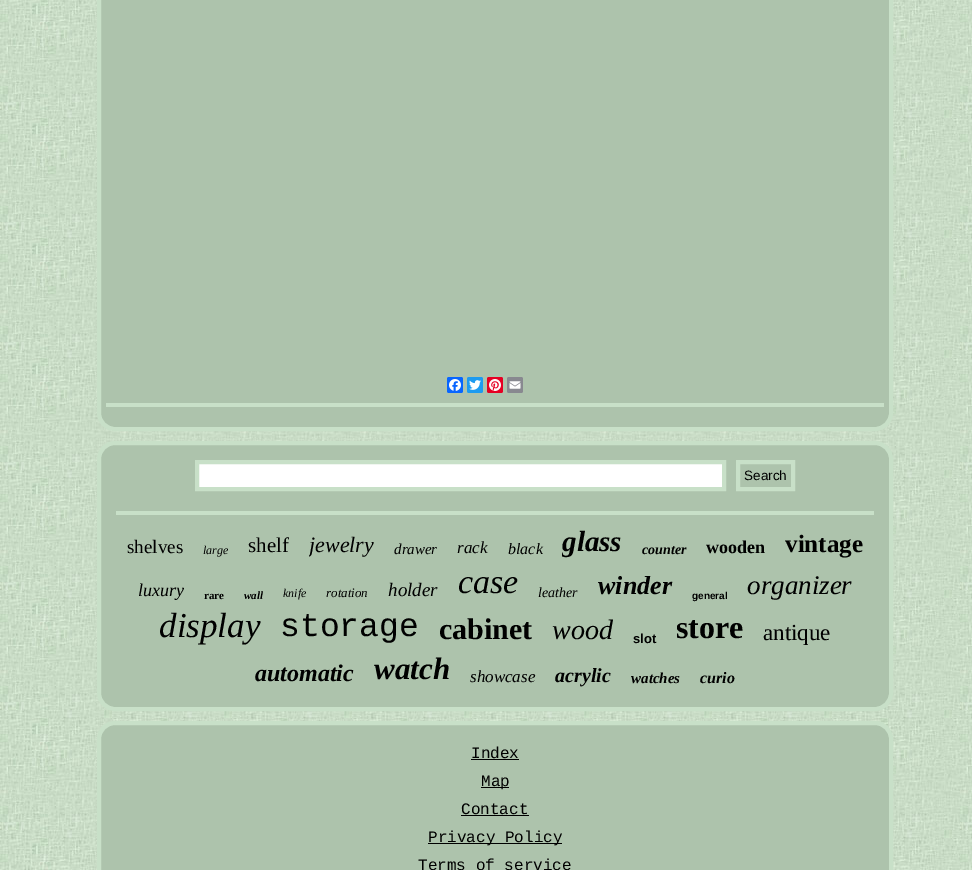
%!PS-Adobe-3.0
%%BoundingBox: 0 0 972 870
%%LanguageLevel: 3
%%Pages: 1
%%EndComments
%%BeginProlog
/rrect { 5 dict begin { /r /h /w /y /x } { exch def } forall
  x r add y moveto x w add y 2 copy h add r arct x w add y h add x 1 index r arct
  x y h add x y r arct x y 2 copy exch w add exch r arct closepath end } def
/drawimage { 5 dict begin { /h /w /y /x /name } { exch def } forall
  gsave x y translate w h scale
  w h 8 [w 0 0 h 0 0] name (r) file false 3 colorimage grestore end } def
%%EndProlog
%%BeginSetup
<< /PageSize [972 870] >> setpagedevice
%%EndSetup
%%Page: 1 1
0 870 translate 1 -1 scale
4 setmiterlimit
1 setgray
0 0 972 870 rectfill
(images/1.raw) 0 0 972 870 drawimage
0.678 0.765 0.675 setrgbcolor
99 -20 792 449 16 rrect gsave fill grestore
0.784 0.878 0.784 setrgbcolor
4 setlinewidth
stroke
0.031 0.4 1 setrgbcolor
447 377 16 16 2 rrect fill
(images/2.raw) 449 379 12 12 drawimage
0.114 0.608 0.941 setrgbcolor
467 377 16 16 2 rrect fill
(images/3.raw) 469 380 12 10 drawimage
0.902 0 0.137 setrgbcolor
487 377 16 16 2 rrect fill
(images/4.raw) 489 379 12 12 drawimage
0.533 0.537 0.565 setrgbcolor
507 377 16 16 2 rrect fill
(images/5.raw) 509 381 12 8 drawimage
0.784 0.878 0.784 setrgbcolor
106 403 778 4 rectfill
0.678 0.765 0.675 setrgbcolor
99 443 792 266 16 rrect gsave fill grestore
0.784 0.878 0.784 setrgbcolor
stroke
1 setgray
199 464 523 23 rectfill
0.784 0.878 0.784 setrgbcolor
newpath 197 462 moveto 724 462 lineto 724 489 lineto 197 489 lineto closepath stroke
newpath 738 462 moveto 793 462 lineto 793 489 lineto 738 489 lineto closepath stroke
116 511 758 4 rectfill
0.678 0.765 0.675 setrgbcolor
99 723 792 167 16 rrect gsave fill grestore
0.784 0.878 0.784 setrgbcolor
stroke
0 setgray
471 759 48 1 rectfill
481 787 28 1 rectfill
461 815 68 1 rectfill
428 843 134 1 rectfill
/LiberationSans-Regular [13.5 0 0 -13.5 0 0] selectfont
744 480 moveto (Search) show
/LiberationSerif-Regular [19 0 0 -19 0 0] selectfont
127 553 moveto (shelves) show
/LiberationSerif-Italic [12 0 0 -12 0 0] selectfont
203 554 moveto (large) show
gsave
248 533 41 25 rectclip
/LiberationSerif-Regular [21 0 0 -21 0 0] selectfont
248 552 moveto (shelf) show
grestore
gsave
309 532 65 26 rectclip
/LiberationSerif-Italic [22 0 0 -22 0 0] selectfont
309 552 moveto (jewelry) show
grestore
/LiberationSerif-Italic [15 0 0 -15 0 0] selectfont
394 554 moveto (drawer) show
/LiberationSerif-Italic [17 0 0 -17 0 0] selectfont
457 553 moveto (rack) show
/LiberationSerif-Italic [16 0 0 -16 0 0] selectfont
508 554 moveto (black) show
gsave
562 525 60 33 rectclip
/LiberationSerif-BoldItalic [29 0 0 -29 0 0] selectfont
562 551 moveto (glass) show
grestore
/LiberationSerif-BoldItalic [14 0 0 -14 0 0] selectfont
642 554 moveto (counter) show
/LiberationSerif-Bold [18 0 0 -18 0 0] selectfont
706 553 moveto (wooden) show
/LiberationSerif-Bold [25 0 0 -25 0 0] selectfont
785 552 moveto (vintage) show
/LiberationSerif-Italic [18 0 0 -18 0 0] selectfont
138 596 moveto (luxury) show
/LiberationSerif-Bold [11 0 0 -11 0 0] selectfont
204 599 moveto (rare) show
/LiberationSerif-BoldItalic [11 0 0 -11 0 0] selectfont
244 599 moveto (wall) show
/LiberationSerif-Italic [12 0 0 -12 0 0] selectfont
283 597 moveto (knife) show
/LiberationSerif-Italic [13 0 0 -13 0 0] selectfont
326 597 moveto (rotation) show
/LiberationSerif-Italic [19 0 0 -19 0 0] selectfont
388 596 moveto (holder) show
/LiberationSerif-Italic [34 0 0 -34 0 0] selectfont
458 593 moveto (case) show
/LiberationSerif-Italic [14 0 0 -14 0 0] selectfont
538 597 moveto (leather) show
/LiberationSerif-BoldItalic [26 0 0 -26 0 0] selectfont
598 594 moveto (winder) show
/LiberationSans-Bold [10 0 0 -10 0 0] selectfont
692 599 moveto (general) show
/LiberationSerif-Italic [27 0 0 -27 0 0] selectfont
747 594 moveto (organizer) show
/LiberationSerif-Italic [35 0 0 -35 0 0] selectfont
159 637 moveto (display) show
/LiberationMono-Regular [33 0 0 -33 0 0] selectfont
280 636 moveto (storage) show
/LiberationSerif-Bold [30 0 0 -30 0 0] selectfont
439 639 moveto (cabinet) show
/LiberationSerif-Italic [28 0 0 -28 0 0] selectfont
552 639 moveto (wood) show
/LiberationSans-Bold [13 0 0 -13 0 0] selectfont
633 643 moveto (slot) show
/LiberationSerif-Bold [32 0 0 -32 0 0] selectfont
676 638 moveto (store) show
/LiberationSerif-Regular [23 0 0 -23 0 0] selectfont
763 640 moveto (antique) show
/LiberationSerif-BoldItalic [24 0 0 -24 0 0] selectfont
255 681 moveto (automatic) show
/LiberationSerif-BoldItalic [31 0 0 -31 0 0] selectfont
374 679 moveto (watch) show
/LiberationSerif-Italic [17 0 0 -17 0 0] selectfont
470 682 moveto (showcase) show
/LiberationSerif-BoldItalic [20 0 0 -20 0 0] selectfont
555 682 moveto (acrylic) show
/LiberationSerif-BoldItalic [15 0 0 -15 0 0] selectfont
631 683 moveto (watches) show
/LiberationSerif-BoldItalic [16 0 0 -16 0 0] selectfont
700 683 moveto (curio) show
/LiberationMono-Regular [16 0 0 -16 0 0] selectfont
471 758 moveto (Index) show
481 786 moveto (Map) show
461 814 moveto (Contact) show
428 842 moveto (Privacy Policy) show
418 870 moveto (Terms of service) show
showpage
%%EOF
